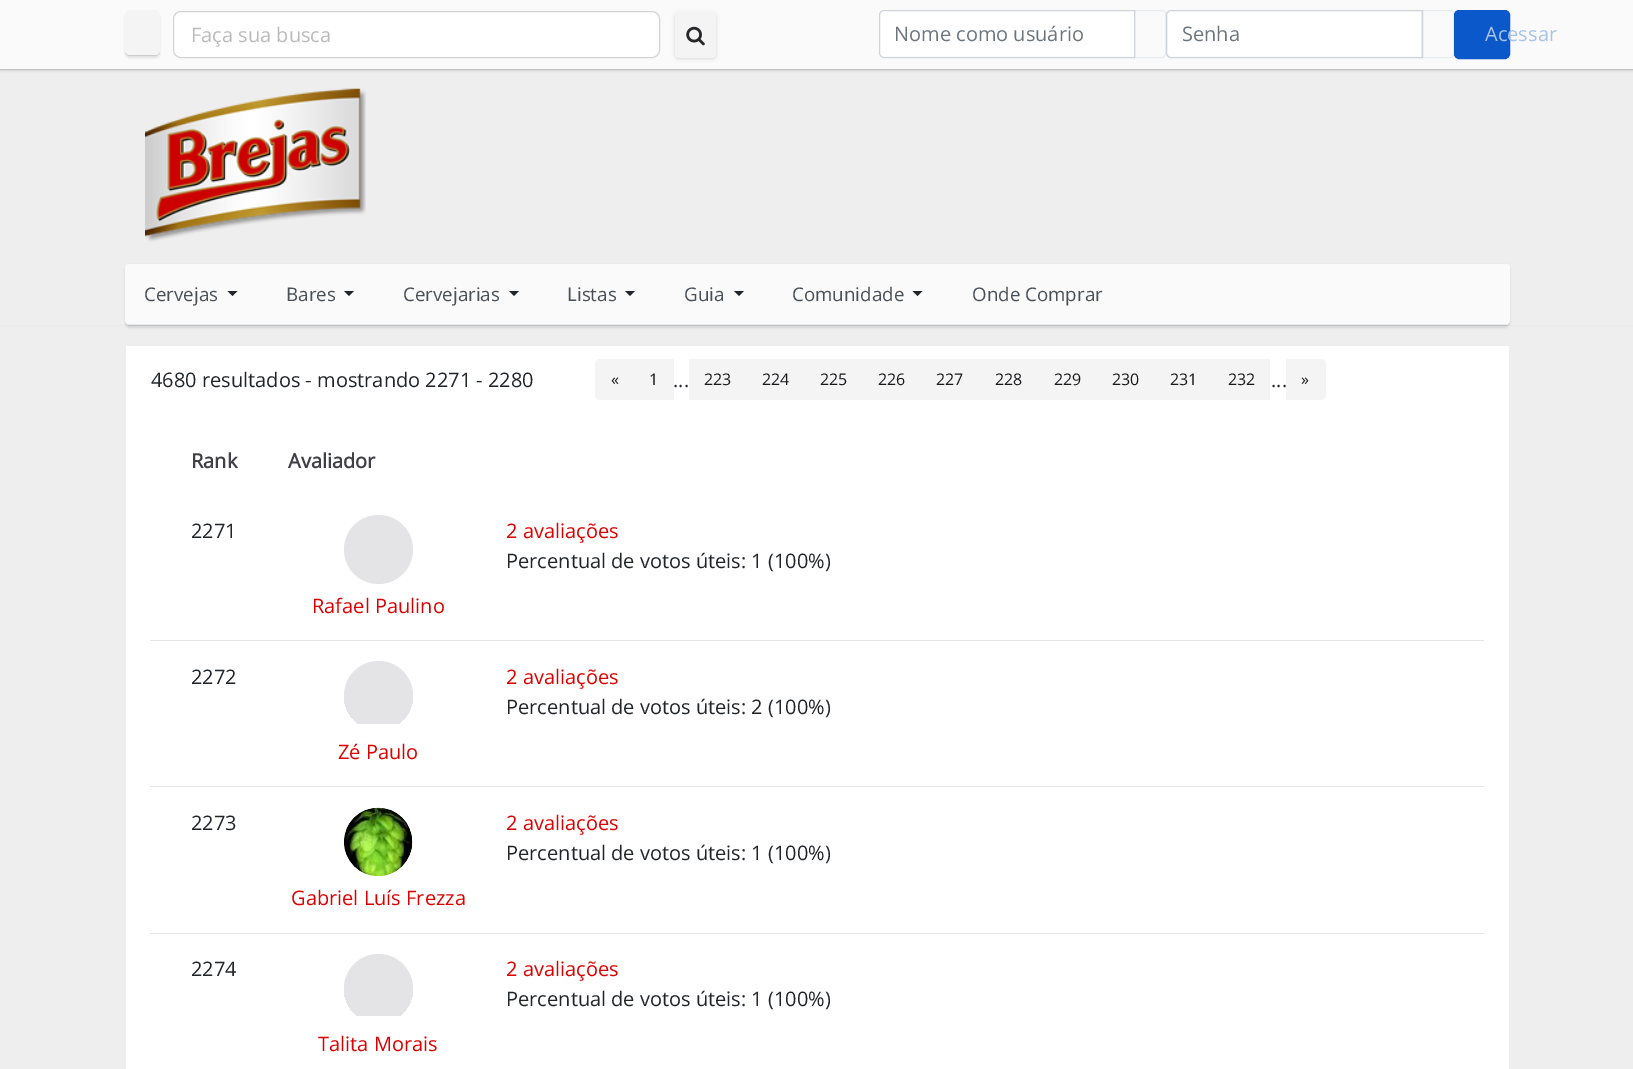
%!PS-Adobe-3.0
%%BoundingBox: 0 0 1633 1069
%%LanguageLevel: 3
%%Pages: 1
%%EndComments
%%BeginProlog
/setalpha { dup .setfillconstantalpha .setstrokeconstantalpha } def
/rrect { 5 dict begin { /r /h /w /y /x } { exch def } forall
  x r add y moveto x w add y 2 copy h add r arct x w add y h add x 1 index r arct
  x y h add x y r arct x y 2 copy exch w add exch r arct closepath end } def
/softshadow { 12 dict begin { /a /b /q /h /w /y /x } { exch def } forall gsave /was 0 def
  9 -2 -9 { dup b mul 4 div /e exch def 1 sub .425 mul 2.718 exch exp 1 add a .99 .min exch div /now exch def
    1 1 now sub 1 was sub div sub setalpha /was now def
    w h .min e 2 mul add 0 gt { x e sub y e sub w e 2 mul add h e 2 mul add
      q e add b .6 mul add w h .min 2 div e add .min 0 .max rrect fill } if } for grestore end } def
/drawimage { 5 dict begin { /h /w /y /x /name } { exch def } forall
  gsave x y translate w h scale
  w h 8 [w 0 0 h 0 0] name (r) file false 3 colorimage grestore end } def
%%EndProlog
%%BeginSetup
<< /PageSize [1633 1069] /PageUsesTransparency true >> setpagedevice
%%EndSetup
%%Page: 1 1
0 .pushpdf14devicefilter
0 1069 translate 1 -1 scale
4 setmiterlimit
0.933 setgray
0 0 1633 1069 rectfill
0.839 setgray
newpath 0 69 moveto 0 70 lineto 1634 70 lineto 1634 1 lineto 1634 69 lineto closepath fill
0 setgray
0 3 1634 68 0 1 0.1 softshadow
0.98 setgray
0 0 1633 69 rectfill
0.882 setgray
newpath 125 50 moveto 125 56 129 56 134 56 curveto 151 56 lineto 156 56 160 56 160 50 curveto 160 53 158 55 155 55 curveto 130 55 lineto 127 55 125 53 125 50 curveto closepath fill
0 setgray
125 13 35 45 5 1 0.1 softshadow
0.957 setgray
125 10 35 45 5 rrect fill
1 setgray
173.5 11.5 486 46 7.5 rrect gsave fill grestore
0.831 0.831 0.847 setrgbcolor
stroke
0 setgray
675 13 41 46 4 1 0.06 softshadow
675 13 41 46 4 2 0.1 softshadow
0.957 0.957 0.961 setrgbcolor
675.5 11.5 40 46 3.5 rrect gsave fill grestore
stroke
(images/1.raw) 686 26 19 20 drawimage
1 setgray
newpath 884 11 moveto 1134 11 lineto 1134 56 lineto 884 56 lineto 882 56 880 54 880 52 curveto 880 15 lineto 880 13 882 11 884 11 curveto closepath fill
0.914 0.925 0.937 setrgbcolor
newpath 1134.5 10.5 moveto 1162 10.5 lineto 1164 10.5 1165.5 12 1165.5 14 curveto 1165.5 54 lineto 1165.5 56 1164 57.5 1162 57.5 curveto 1134.5 57.5 lineto closepath stroke
0.808 0.831 0.855 setrgbcolor
newpath 884 10.5 moveto 1134.5 10.5 lineto 1134.5 57.5 lineto 884 57.5 lineto 881.5 57.5 879.5 55.5 879.5 53 curveto 879.5 15 lineto 879.5 12.5 881.5 10.5 884 10.5 curveto closepath stroke
1 setgray
newpath 1172 11 moveto 1421 11 lineto 1421 56 lineto 1172 56 lineto 1170 56 1168 54 1168 52 curveto 1168 15 lineto 1168 13 1170 11 1172 11 curveto closepath fill
0.914 0.925 0.937 setrgbcolor
newpath 1421.5 10.5 moveto 1450 10.5 lineto 1452 10.5 1453.5 12 1453.5 14 curveto 1453.5 54 lineto 1453.5 56 1452 57.5 1450 57.5 curveto 1421.5 57.5 lineto closepath stroke
0.808 0.831 0.855 setrgbcolor
newpath 1171 10.5 moveto 1422.5 10.5 lineto 1422.5 57.5 lineto 1171 57.5 lineto 1168.5 57.5 1166.5 55.5 1166.5 53 curveto 1166.5 15 lineto 1166.5 12.5 1168.5 10.5 1171 10.5 curveto closepath stroke
0.039 0.345 0.792 setrgbcolor
1454.5 10.5 55 48 4.5 rrect gsave fill grestore
stroke
0.914 0.925 0.937 setrgbcolor
0 325 1633 1 rectfill
(images/2.raw) 145 88 221 154 drawimage
0.1 setalpha
0 setgray
newpath 125 320 moveto 125 323 127 326 130 326 curveto 1505 326 lineto 1508 326 1510 323 1510 320 curveto 1510 323 1508 325 1505 325 curveto 130 325 lineto 127 325 125 323 125 320 curveto closepath fill
1 setalpha
125 265 1385 63 5 1 0.1 softshadow
0.98 setgray
125 263 1385 62 5 rrect fill
0.914 0.925 0.937 setrgbcolor
128 263 1380 1 rectfill
128 324 1380 1 rectfill
0.129 0.145 0.161 setrgbcolor
newpath 227.5 291 moveto 237.5 291 lineto 232.5 296 lineto closepath fill
newpath 344 291 moveto 354 291 lineto 349 296 lineto closepath fill
newpath 509 291 moveto 519 291 lineto 514 296 lineto closepath fill
newpath 625 291 moveto 635 291 lineto 630 296 lineto closepath fill
newpath 734 291 moveto 744 291 lineto 739 296 lineto closepath fill
newpath 912.5 291 moveto 922.5 291 lineto 917.5 296 lineto closepath fill
1 setgray
126 346 1383 723 rectfill
0.957 0.957 0.961 setrgbcolor
newpath 600 359 moveto 634 359 lineto 634 400 lineto 600 400 lineto 597 400 595 398 595 395 curveto 595 364 lineto 595 361 597 359 600 359 curveto closepath fill
634 359 40 41 rectfill
689 359 581 41 rectfill
newpath 1286 359 moveto 1321 359 lineto 1324 359 1326 361 1326 364 curveto 1326 395 lineto 1326 398 1324 400 1321 400 curveto 1286 400 lineto closepath fill
0.894 0.894 0.906 setrgbcolor
150 640 1334 1 rectfill
newpath 378.5 549.5 34.5 0 360 arc closepath fill
150 786 1334 1 rectfill
gsave
344 661 69 69 34.5 rrect clip newpath
newpath 378.5 661 moveto 397.5 661 413 676.5 413 695.5 curveto 413 724 lineto 344 724 lineto 344 695.5 lineto 344 676.5 359.5 661 378.5 661 curveto closepath fill
grestore
150 933 1334 1 rectfill
(images/3.raw) 344 807 69 69 drawimage
gsave
344 954 69 69 34.5 rrect clip newpath
newpath 378.5 954 moveto 397.5 954 413 969.5 413 988.5 curveto 413 1016 lineto 344 1016 lineto 344 988.5 lineto 344 969.5 359.5 954 378.5 954 curveto closepath fill
grestore
/OpenSans-Regular [20 0 0 -20 0 0] selectfont
0.729 setgray
191 42 moveto (Faça sua busca) show
0.424 0.459 0.49 setrgbcolor
894 41 moveto (Nome como usuário) show
1182 41 moveto (Senha) show
0.651 0.761 0.914 setrgbcolor
1485 41 moveto (Acessar) show
/OpenSans-Regular [18.75 0 0 -18.75 0 0] selectfont
0.286 0.314 0.341 setrgbcolor
144 301 moveto (Cervejas) show
286 301 moveto (Bares) show
403 301 moveto (Cervejarias) show
567 301 moveto (Listas) show
684 301 moveto (Guia) show
792 301 moveto (Comunidade) show
972 301 moveto (Onde Comprar) show
/OpenSans-Regular [20 0 0 -20 0 0] selectfont
0.129 0.145 0.161 setrgbcolor
151 387 moveto (4680 resultados - mostrando 2271 - 2280) show
/OpenSans-Regular [16 0 0 -16 0 0] selectfont
0.094 0.094 0.106 setrgbcolor
611 385 moveto («) show
649 385 moveto (1) show
704 385 moveto (223) show
762 385 moveto (224) show
820 385 moveto (225) show
878 385 moveto (226) show
936 385 moveto (227) show
995 385 moveto (228) show
1054 385 moveto (229) show
1112 385 moveto (230) show
1170 385 moveto (231) show
1228 385 moveto (232) show
1301 385 moveto (») show
/OpenSans-Regular [20 0 0 -20 0 0] selectfont
0.129 0.145 0.161 setrgbcolor
673 387 moveto (...) show
1271 387 moveto (...) show
/OpenSans-Bold [20 0 0 -20 0 0] selectfont
0.247 0.247 0.275 setrgbcolor
191 468 moveto (Rank) show
288 468 moveto (Avaliador) show
/OpenSans-Regular [20 0 0 -20 0 0] selectfont
0.129 0.145 0.161 setrgbcolor
191 538 moveto (2271) show
0.867 0 0 setrgbcolor
506 538 moveto (2 avaliações) show
0.129 0.145 0.161 setrgbcolor
506 568 moveto (Percentual de votos úteis: 1 \(100%\)) show
0.867 0 0 setrgbcolor
312 613 moveto (Rafael Paulino) show
0.129 0.145 0.161 setrgbcolor
191 684 moveto (2272) show
0.867 0 0 setrgbcolor
506 684 moveto (2 avaliações) show
0.129 0.145 0.161 setrgbcolor
506 714 moveto (Percentual de votos úteis: 2 \(100%\)) show
0.867 0 0 setrgbcolor
338 759 moveto (Zé Paulo) show
0.129 0.145 0.161 setrgbcolor
191 830 moveto (2273) show
0.867 0 0 setrgbcolor
506 830 moveto (2 avaliações) show
0.129 0.145 0.161 setrgbcolor
506 860 moveto (Percentual de votos úteis: 1 \(100%\)) show
0.867 0 0 setrgbcolor
291 905 moveto (Gabriel Luís Frezza) show
0.129 0.145 0.161 setrgbcolor
191 976 moveto (2274) show
0.867 0 0 setrgbcolor
506 976 moveto (2 avaliações) show
0.129 0.145 0.161 setrgbcolor
506 1006 moveto (Percentual de votos úteis: 1 \(100%\)) show
0.867 0 0 setrgbcolor
318 1051 moveto (Talita Morais) show
.poppdf14devicefilter showpage
%%EOF
